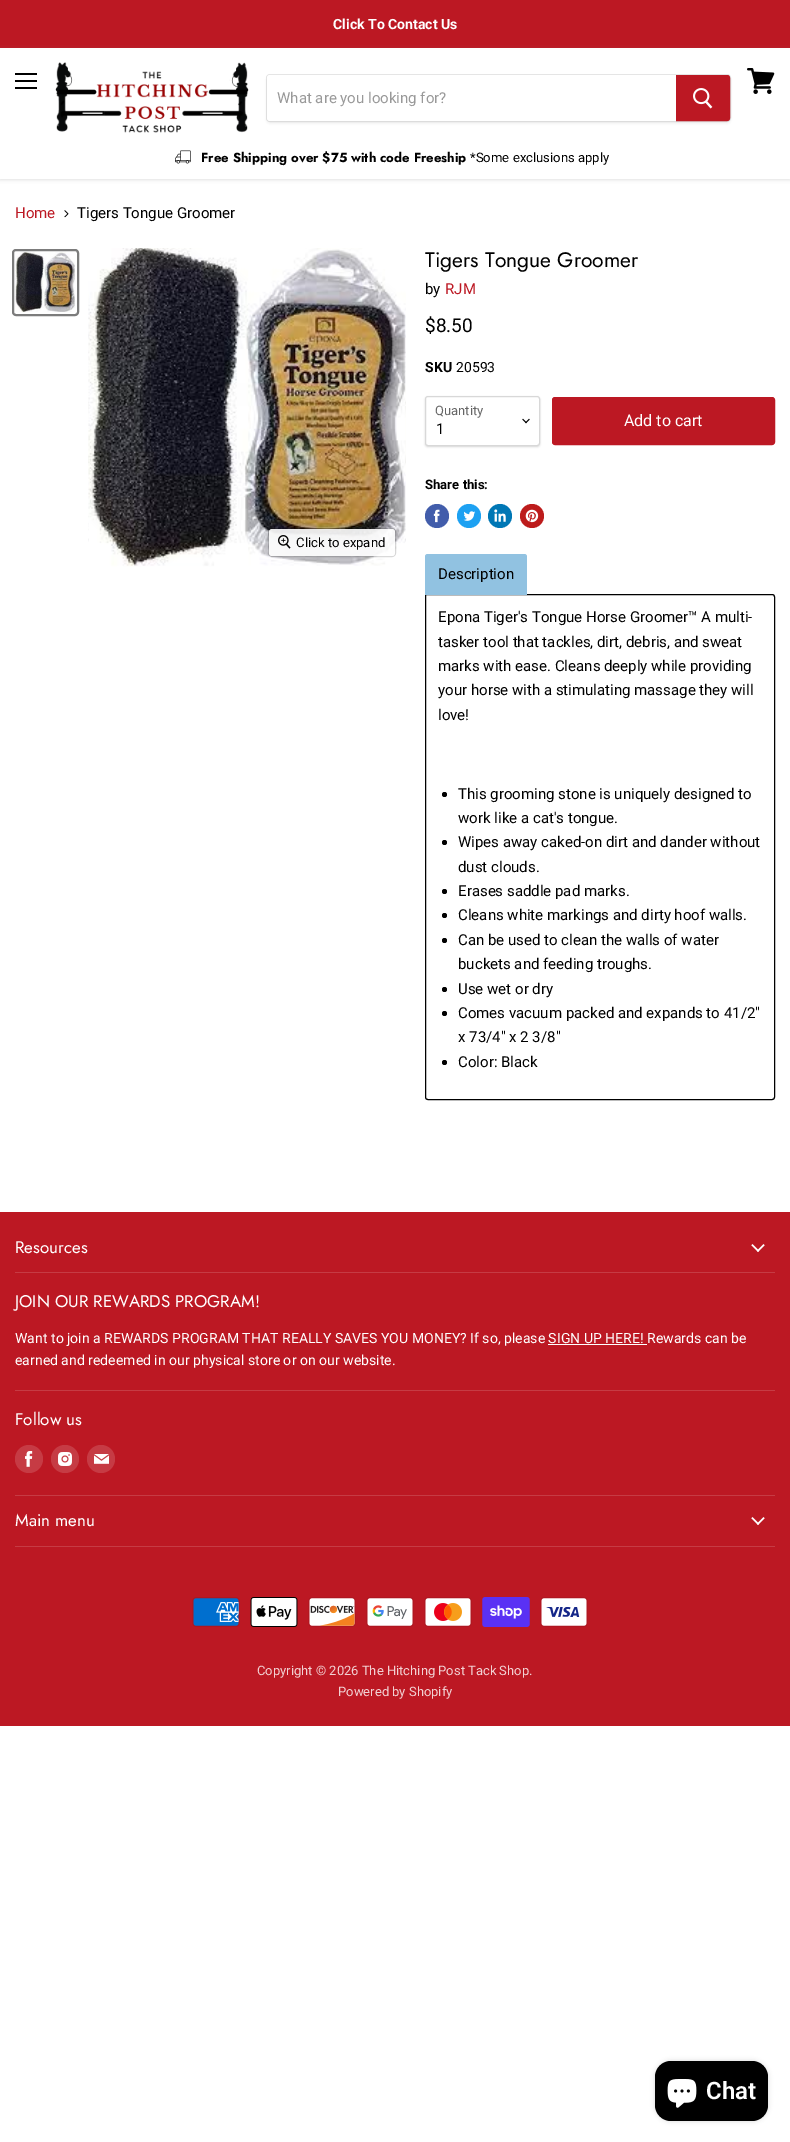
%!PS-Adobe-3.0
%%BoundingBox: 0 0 790 2142
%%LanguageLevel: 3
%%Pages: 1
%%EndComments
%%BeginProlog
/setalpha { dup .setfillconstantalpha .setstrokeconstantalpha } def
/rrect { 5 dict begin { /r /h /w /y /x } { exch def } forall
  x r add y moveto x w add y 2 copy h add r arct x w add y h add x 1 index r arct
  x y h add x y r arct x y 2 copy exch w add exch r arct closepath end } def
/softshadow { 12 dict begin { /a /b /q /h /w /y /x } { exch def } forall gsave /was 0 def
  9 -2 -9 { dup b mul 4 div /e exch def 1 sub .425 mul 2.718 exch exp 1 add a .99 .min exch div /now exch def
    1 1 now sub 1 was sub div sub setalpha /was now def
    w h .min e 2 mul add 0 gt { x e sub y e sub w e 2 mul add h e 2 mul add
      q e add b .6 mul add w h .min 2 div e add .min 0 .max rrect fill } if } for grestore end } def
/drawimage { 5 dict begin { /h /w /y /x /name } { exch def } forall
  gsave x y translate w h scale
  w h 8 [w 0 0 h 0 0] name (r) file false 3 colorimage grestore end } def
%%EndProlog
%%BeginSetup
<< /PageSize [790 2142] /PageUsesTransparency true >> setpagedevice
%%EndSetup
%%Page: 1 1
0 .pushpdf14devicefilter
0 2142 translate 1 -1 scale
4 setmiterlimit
1 setgray
0 0 790 2142 rectfill
0.737 0.094 0.137 setrgbcolor
0 0 790 48 rectfill
gsave
newpath 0 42 moveto 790 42 lineto 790 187 lineto 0 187 lineto closepath 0 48 moveto 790 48 lineto 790 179 lineto 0 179 lineto closepath eoclip newpath
0.502 setgray
0 49 790 131 0 2 0.25 softshadow
grestore
0 setgray
15 73 22 2 rectfill
15 80 22 2 rectfill
15 87 22 2 rectfill
(images/1.raw) 747 68 28 26 drawimage
(images/2.raw) 55 62 194 71 drawimage
0.502 setgray
266 76 465 48 4 1.5 0.11 softshadow
0.2 setalpha
266.5 74.5 464 47 3.5 rrect stroke
1 setalpha
1 setgray
newpath 270 75 moveto 676 75 lineto 676 121 lineto 270 121 lineto 268.5 121 267 119.5 267 118 curveto 267 78 lineto 267 76.5 268.5 75 270 75 curveto closepath fill
0.737 0.094 0.137 setrgbcolor
newpath 676.5 75.5 moveto 727 75.5 lineto 728.5 75.5 729.5 76.5 729.5 78 curveto 729.5 118 lineto 729.5 119.5 728.5 120.5 727 120.5 curveto 676.5 120.5 lineto closepath gsave fill grestore
stroke
(images/3.raw) 693 88 20 21 drawimage
(images/4.raw) 175 150 16 14 drawimage
(images/5.raw) 64 210 5 8 drawimage
0.486 setgray
2 setlinewidth
13 250 65 65 3 rrect stroke
(images/6.raw) 15 252 60 60 drawimage
(images/7.raw) 88 248 318 319 drawimage
0.15 setalpha
0 setgray
1 setlinewidth
268.5 528.5 127 28 3.5 rrect stroke
0.9 setalpha
1 setgray
269 529 126 27 3 rrect fill
1 setalpha
(images/8.raw) 278 535 13 14 drawimage
0 setgray
425 397 115 50 3 1 0.15 softshadow
1 setgray
425.5 396.5 114 49 2.5 rrect gsave fill grestore
0.847 setgray
stroke
(images/9.raw) 522 418 8 6 drawimage
0.737 0.094 0.137 setrgbcolor
552.5 397.5 222 47 2.5 rrect gsave fill grestore
stroke
0.259 0.365 0.671 setrgbcolor
newpath 437 516 12 0 360 arc closepath fill
(images/10.raw) 433 509 7 14 drawimage
0.114 0.631 0.949 setrgbcolor
newpath 469 516 12 0 360 arc closepath fill
(images/11.raw) 463 511 13 10 drawimage
0 0.467 0.71 setrgbcolor
newpath 500 516 12 0 360 arc closepath fill
(images/12.raw) 494 509 12 13 drawimage
0.741 0.11 0.11 setrgbcolor
newpath 532 516 12 0 360 arc closepath fill
(images/13.raw) 525 509 14 14 drawimage
0 setgray
newpath 425.5 594.5 moveto 772 594.5 lineto 773.5 594.5 774.5 595.5 774.5 597 curveto 774.5 1097 lineto 774.5 1098.5 773.5 1099.5 772 1099.5 curveto 428 1099.5 lineto 426.5 1099.5 425.5 1098.5 425.5 1097 curveto closepath stroke
0.569 0.761 0.882 setrgbcolor
newpath 428 555 moveto 524 555 lineto 525 555 526 556 526 557 curveto 526 595 lineto 426 595 lineto 426 557 lineto 426 556 427 555 428 555 curveto closepath fill
newpath 428 554 moveto 524 554 lineto 526 554 527 555 527 557 curveto 527 595 lineto 425 595 lineto 425 557 lineto 425 555 426 554 428 554 curveto closepath 428 555 moveto 524 555 lineto 525 555 526 556 526 557 curveto 526 595 lineto 426 595 lineto 426 557 lineto 426 556 427 555 428 555 curveto closepath eofill
0 setgray
newpath 444.5 794.5 2.5 0 360 arc closepath fill
newpath 444.5 842.5 2.5 0 360 arc closepath fill
newpath 444.5 891.5 2.5 0 360 arc closepath fill
newpath 444.5 915.5 2.5 0 360 arc closepath fill
newpath 444.5 940.5 2.5 0 360 arc closepath fill
newpath 444.5 989.5 2.5 0 360 arc closepath fill
newpath 444.5 1013.5 2.5 0 360 arc closepath fill
newpath 444.5 1062.5 2.5 0 360 arc closepath fill
0.737 0.094 0.137 setrgbcolor
0 1212 790 514 rectfill
0.776 0.231 0.267 setrgbcolor
15 1272 760 1 rectfill
(images/14.raw) 751 1244 14 8 drawimage
15 1390 760 1 rectfill
1 setgray
548 1344 99 1 rectfill
0.776 0.231 0.267 setrgbcolor
15 1495 760 1 rectfill
newpath 29 1459 14 0 360 arc closepath fill
(images/15.raw) 25 1451 8 16 drawimage
newpath 65 1459 14 0 360 arc closepath fill
(images/16.raw) 58 1452 14 14 drawimage
newpath 101 1459 14 0 360 arc closepath fill
(images/17.raw) 94 1454 15 10 drawimage
15 1546 760 1 rectfill
(images/14.raw) 751 1517 14 8 drawimage
(images/18.raw) 192 1597 48 30 drawimage
(images/19.raw) 250 1597 48 30 drawimage
(images/20.raw) 308 1597 48 30 drawimage
(images/21.raw) 366 1597 48 30 drawimage
(images/22.raw) 424 1597 48 30 drawimage
(images/23.raw) 482 1597 48 30 drawimage
(images/24.raw) 540 1597 48 30 drawimage
0 setgray
655 2061 113 60 16 2.5 0.15 softshadow
655 2061 113 60 16 rrect fill
(images/25.raw) 667 2079 30 29 drawimage
/Roboto-Bold [14.05 0 0 -14.05 0 0] selectfont
1 setgray
333 29 moveto (Click To Contact Us) show
/Roboto-Regular [15 0 0 -15 0 0] selectfont
0.6 setgray
277 103 moveto (What are you looking for?) show
/Jost-Bold [13.1 0 0 -13.1 0 0] selectfont
0 setgray
201 162 moveto (Free Shipping over $75 with code Freeship) show
/Roboto-Regular [13.1 0 0 -13.1 0 0] selectfont
470 162 moveto (*Some exclusions apply) show
/Roboto-Regular [15 0 0 -15 0 0] selectfont
0.737 0.094 0.137 setrgbcolor
15 218 moveto (Home) show
0 setgray
77 218 moveto (Tigers Tongue Groomer) show
/Roboto-Regular [13.1 0 0 -13.1 0 0] selectfont
296 547 moveto (Click to expand) show
/Jost-Regular [21 0 0 -21 0 0] selectfont
425 267 moveto (Tigers Tongue Groomer) show
/Roboto-Regular [15 0 0 -15 0 0] selectfont
425 294 moveto (by) show
0.737 0.094 0.137 setrgbcolor
445 294 moveto (RJM) show
/Roboto-Regular [19 0 0 -19 0 0] selectfont
0 setgray
425 332 moveto ($8.50) show
/Roboto-Bold [14 0 0 -14 0 0] selectfont
425 372 moveto (SKU) show
/Roboto-Regular [14 0 0 -14 0 0] selectfont
456 372 moveto (20593) show
/Roboto-Regular [13 0 0 -13 0 0] selectfont
0.4 setgray
435 415 moveto (Quantity) show
/Roboto-Regular [15 0 0 -15 0 0] selectfont
0 setgray
436 434 moveto (1) show
/Roboto-Regular [16 0 0 -16 0 0] selectfont
1 setgray
624 426 moveto (Add to cart) show
/Roboto-Bold [13.1 0 0 -13.1 0 0] selectfont
0 setgray
425 489 moveto (Share this:) show
/Roboto-Regular [15 0 0 -15 0 0] selectfont
438 579 moveto (Description) show
438 622 moveto (Epona Tiger's Tongue Horse Groomer™ A multi-) show
438 647 moveto (tasker tool that tackles, dirt, debris, and sweat) show
438 671 moveto (marks with ease. Cleans deeply while providing) show
438 695 moveto (your horse with a stimulating massage they will) show
438 720 moveto (love!) show
458 799 moveto (This grooming stone is uniquely designed to) show
458 823 moveto (work like a cat's tongue.) show
458 847 moveto (Wipes away caked-on dirt and dander without) show
458 872 moveto (dust clouds.) show
458 896 moveto (Erases saddle pad marks.) show
458 920 moveto (Cleans white markings and dirty hoof walls.) show
458 945 moveto (Can be used to clean the walls of water) show
458 969 moveto (buckets and feeding troughs.) show
458 994 moveto (Use wet or dry) show
458 1018 moveto (Comes vacuum packed and expands to 41/2") show
458 1042 moveto (x 73/4" x 2 3/8") show
458 1067 moveto (Color: Black) show
/Jost-Regular [16.9 0 0 -16.9 0 0] selectfont
1 setgray
15 1253 moveto (Resources) show
15 1307 moveto (JOIN OUR REWARDS PROGRAM!) show
/Roboto-Regular [14.05 0 0 -14.05 0 0] selectfont
15 1343 moveto (Want to join a REWARDS PROGRAM THAT REALLY SAVES YOU MONEY? If so, please SIGN UP HERE! Rewards can be) show
15 1365 moveto (earned and redeemed in our physical store or on our website.) show
/Jost-Regular [16.9 0 0 -16.9 0 0] selectfont
15 1425 moveto (Follow us) show
15 1526 moveto (Main menu) show
/Roboto-Regular [13 0 0 -13 0 0] selectfont
0.949 0.82 0.827 setrgbcolor
257 1675 moveto (Copyright © 2026 The Hitching Post Tack Shop.) show
338 1696 moveto (Powered by Shopify) show
/Roboto-SemiBold [24 0 0 -24 0 0] selectfont
1 setgray
706 2099 moveto (Chat) show
.poppdf14devicefilter showpage
%%EOF
